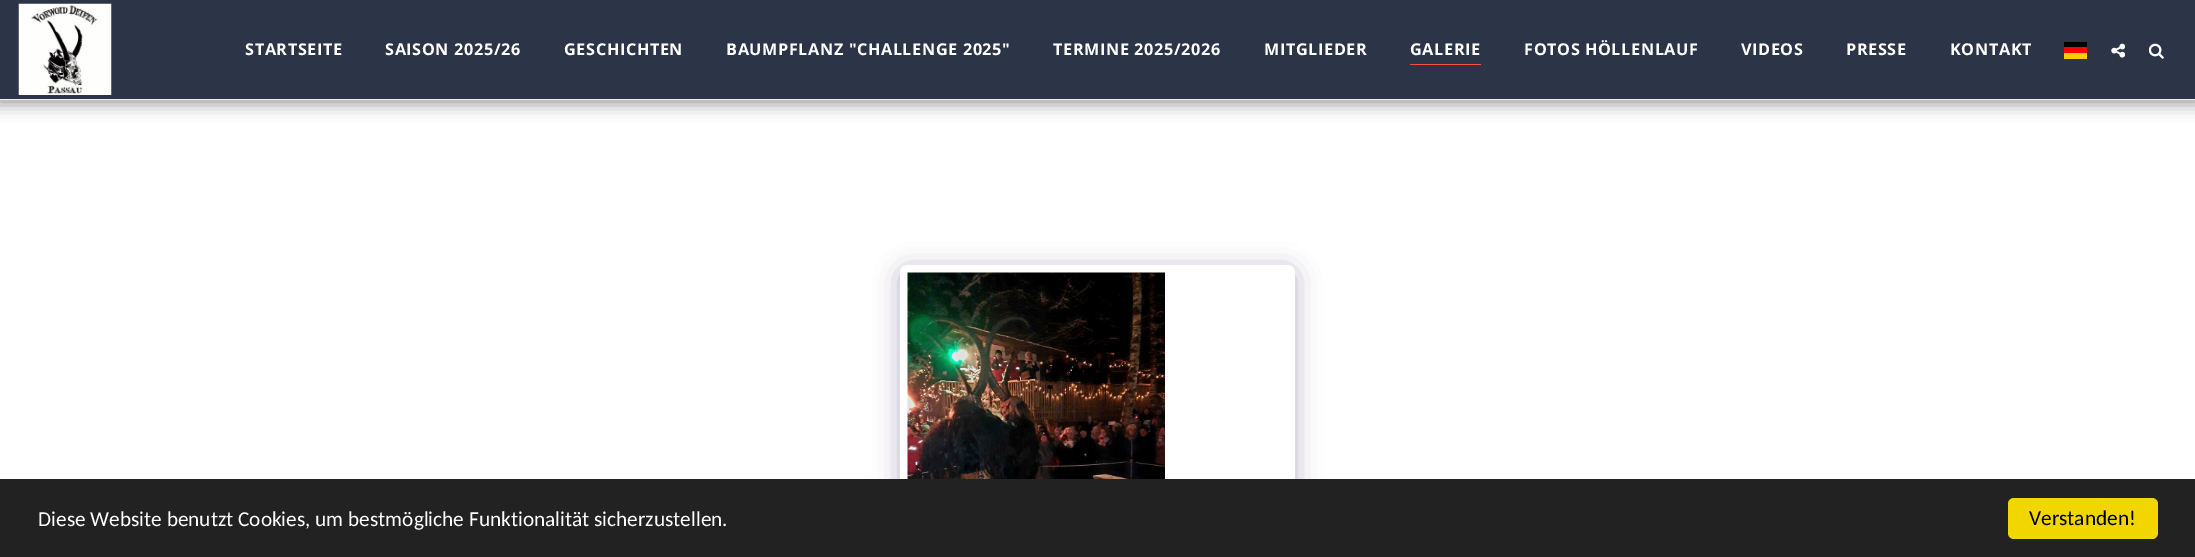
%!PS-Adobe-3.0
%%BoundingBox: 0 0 2195 557
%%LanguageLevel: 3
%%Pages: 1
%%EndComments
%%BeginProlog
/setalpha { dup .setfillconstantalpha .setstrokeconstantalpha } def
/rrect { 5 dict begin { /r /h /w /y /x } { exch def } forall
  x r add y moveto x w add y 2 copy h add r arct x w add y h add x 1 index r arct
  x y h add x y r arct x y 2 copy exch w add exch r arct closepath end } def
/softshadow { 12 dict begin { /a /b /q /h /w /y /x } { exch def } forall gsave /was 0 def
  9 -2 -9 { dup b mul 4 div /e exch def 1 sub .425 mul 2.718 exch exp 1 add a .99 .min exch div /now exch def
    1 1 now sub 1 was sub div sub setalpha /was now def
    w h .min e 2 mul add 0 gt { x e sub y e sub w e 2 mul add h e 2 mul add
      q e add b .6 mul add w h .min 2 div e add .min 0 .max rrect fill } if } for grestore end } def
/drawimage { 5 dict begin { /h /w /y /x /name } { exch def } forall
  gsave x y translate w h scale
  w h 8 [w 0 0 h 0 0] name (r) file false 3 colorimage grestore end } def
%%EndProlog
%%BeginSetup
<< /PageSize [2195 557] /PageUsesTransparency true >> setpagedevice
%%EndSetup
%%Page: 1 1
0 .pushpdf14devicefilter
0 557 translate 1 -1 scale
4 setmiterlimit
1 setgray
0 0 2195 557 rectfill
0 setgray
-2 0 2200 105 0 7.5 0.35 softshadow
0.173 0.208 0.278 setrgbcolor
0 0 2195 99 rectfill
0.953 0.933 0.933 setrgbcolor
0 99 2195 1 rectfill
(images/1.raw) 18 3 94 92 drawimage
0.949 0.318 0.275 setrgbcolor
1410 64 71 1 rectfill
1 0.808 0 setrgbcolor
2064 53 23 6 rectfill
0 0 0.004 setrgbcolor
2064 42 23 5 rectfill
1 0 0 setrgbcolor
2064 47 23 6 rectfill
(images/2.raw) 2111 43 14 15 drawimage
(images/3.raw) 2149 43 15 16 drawimage
0.302 0.247 0.478 setrgbcolor
900 269 395 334 8 12.5 0.4 softshadow
1 setgray
900 265 395 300 8 rrect fill
(images/4.raw) 907 272 258 207 drawimage
0.133 setgray
0 479 2195 78 rectfill
0.945 0.839 0 setrgbcolor
2008 498 150 41 6 rrect fill
/OpenSans-Bold [16.25 0 0 -16.25 0 0] selectfont
1 setgray
245 55 moveto 0.6 0 (STARTSEITE) ashow
385 55 moveto 0.6 0 (SAISON 2025/26) ashow
564 55 moveto 0.6 0 (GESCHICHTEN) ashow
726 55 moveto 0.6 0 (BAUMPFLANZ "CHALLENGE 2025") ashow
1053 55 moveto 0.6 0 (TERMINE 2025/2026) ashow
1264 55 moveto 0.6 0 (MITGLIEDER) ashow
1410 55 moveto 0.6 0 (GALERIE) ashow
1524 55 moveto 0.6 0 (FOTOS HÖLLENLAUF) ashow
1741 55 moveto 0.6 0 (VIDEOS) ashow
1846 55 moveto 0.6 0 (PRESSE) ashow
1950 55 moveto 0.6 0 (KONTAKT) ashow
/Carlito-Regular [21.25 0 0 -21.25 0 0] selectfont
38 526 moveto (Diese Website benutzt Cookies, um bestmögliche Funktionalität sicherzustellen.) show
0 setgray
2029 525 moveto (Verstanden!) show
.poppdf14devicefilter showpage
%%EOF
